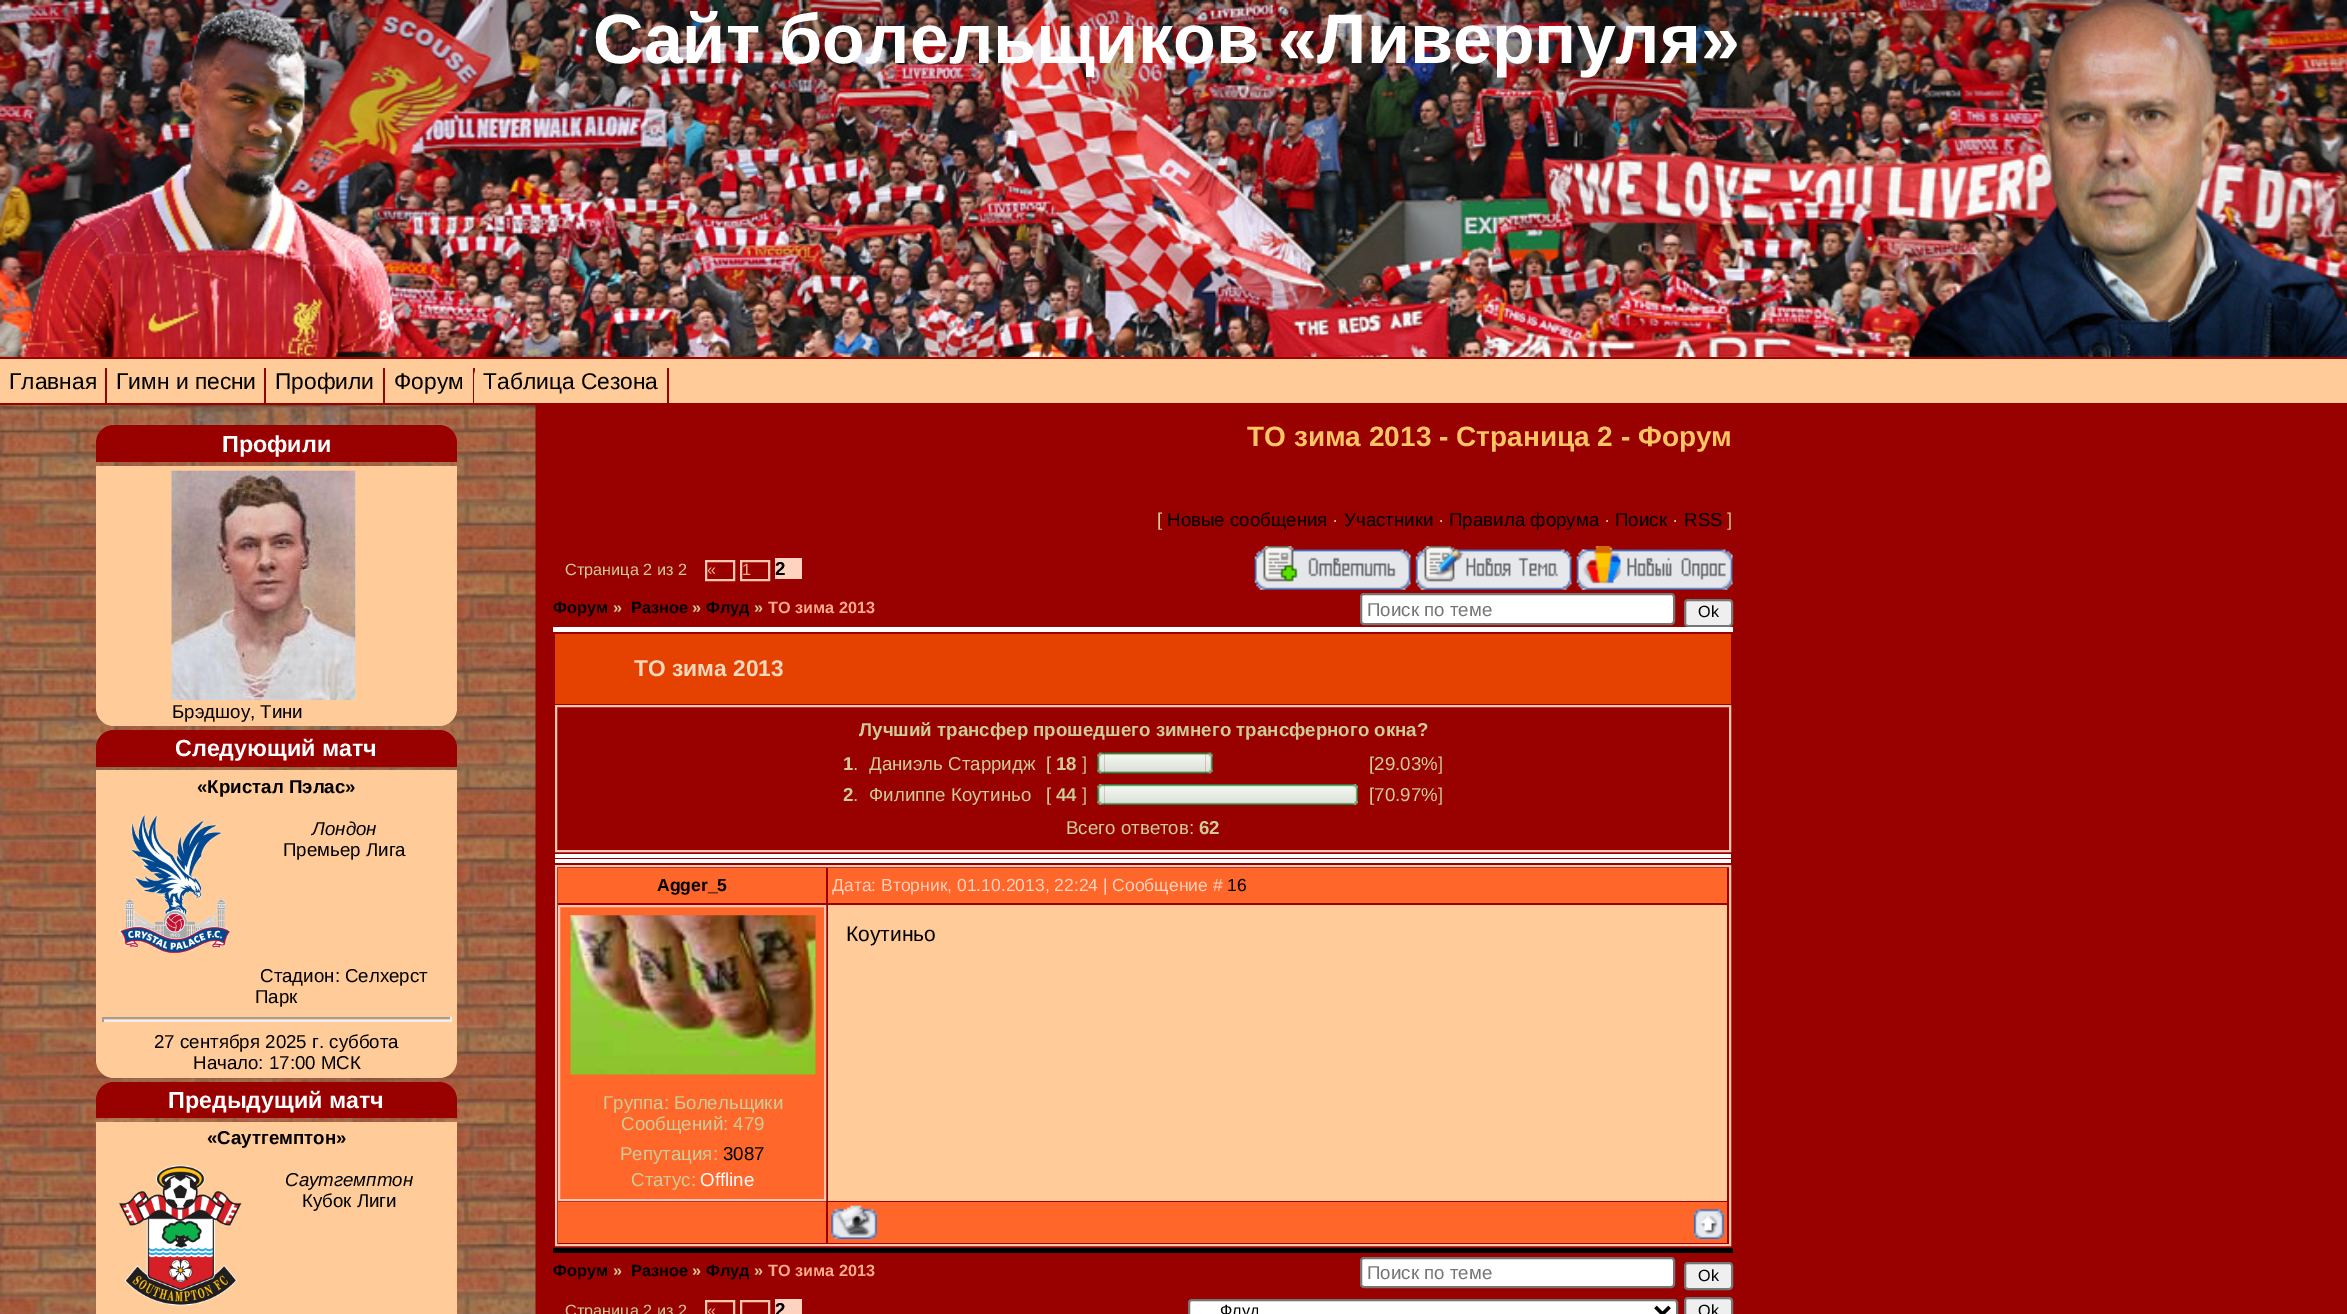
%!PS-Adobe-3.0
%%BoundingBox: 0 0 2347 1314
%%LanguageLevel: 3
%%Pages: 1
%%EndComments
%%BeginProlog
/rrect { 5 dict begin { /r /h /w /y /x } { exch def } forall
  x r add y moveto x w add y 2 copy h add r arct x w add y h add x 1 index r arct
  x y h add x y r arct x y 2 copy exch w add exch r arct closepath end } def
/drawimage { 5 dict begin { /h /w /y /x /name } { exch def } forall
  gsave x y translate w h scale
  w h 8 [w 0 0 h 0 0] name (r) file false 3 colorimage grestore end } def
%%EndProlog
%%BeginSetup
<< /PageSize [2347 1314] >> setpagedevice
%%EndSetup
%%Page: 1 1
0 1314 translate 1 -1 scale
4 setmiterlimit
0.6 0 0 setrgbcolor
0 0 2347 1314 rectfill
(images/1.raw) 0 0 2347 357 drawimage
(images/2.raw) 22 7 374 350 drawimage
(images/3.raw) 1907 0 440 357 drawimage
1 0.8 0.6 setrgbcolor
0 359 2347 44 rectfill
0.6 0 0 setrgbcolor
105 368 2 35 rectfill
264 368 2 35 rectfill
383 368 2 35 rectfill
473 368 2 35 rectfill
1 0.8 0.6 setrgbcolor
newpath 492 359 moveto 651 359 lineto 661 359 669 367 669 377 curveto 669 403 lineto 474 403 lineto 474 377 lineto 474 367 482 359 492 359 curveto closepath fill
0.6 0 0 setrgbcolor
667 368 2 35 rectfill
(images/4.raw) 0 405 536 909 drawimage
newpath 114 425 moveto 439 425 lineto 449 425 457 433 457 443 curveto 457 462 lineto 96 462 lineto 96 443 lineto 96 433 104 425 114 425 curveto closepath fill
1 0.8 0.6 setrgbcolor
newpath 96 466 moveto 457 466 lineto 457 708 lineto 457 718 449 726 439 726 curveto 114 726 lineto 104 726 96 718 96 708 curveto closepath fill
(images/5.raw) 171 470 185 230 drawimage
0.6 0 0 setrgbcolor
newpath 114 730 moveto 439 730 lineto 449 730 457 738 457 748 curveto 457 767 lineto 96 767 lineto 96 748 lineto 96 738 104 730 114 730 curveto closepath fill
1 0.8 0.6 setrgbcolor
newpath 96 770 moveto 457 770 lineto 457 1060 lineto 457 1070 449 1078 439 1078 curveto 114 1078 lineto 104 1078 96 1070 96 1060 curveto closepath fill
(images/6.raw) 119 814 112 140 drawimage
0.624 setgray
102 1017 350 2 rectfill
0.933 setgray
450 1017 2 5 rectfill
102 1020 350 2 rectfill
0.624 setgray
102 1017 2 5 rectfill
0.6 0 0 setrgbcolor
newpath 114 1082 moveto 439 1082 lineto 449 1082 457 1090 457 1100 curveto 457 1118 lineto 96 1118 lineto 96 1100 lineto 96 1090 104 1082 114 1082 curveto closepath fill
1 0.8 0.6 setrgbcolor
96 1122 361 192 rectfill
(images/7.raw) 119 1165 123 141 drawimage
1 0.776 0.69 setrgbcolor
2 setlinewidth
706 561 28 19 rectstroke
741 561 28 19 rectstroke
1 0.827 0.753 setrgbcolor
775 558 27 21 rectfill
(images/8.raw) 1254 546 157 44 drawimage
(images/9.raw) 1415 546 157 44 drawimage
(images/10.raw) 1576 546 157 44 drawimage
1 setgray
1361 594 313 30 3 rrect gsave fill grestore
0.463 setgray
stroke
0.937 setgray
1685 600 47 26 3 rrect gsave fill grestore
0.463 setgray
stroke
1 setgray
553 627 1180 5 rectfill
0 setgray
553 1248 1180 5 rectfill
0.898 0.259 0.004 setrgbcolor
555 634 1176 70 rectfill
1 0.776 0.69 setrgbcolor
556 706 1174 145 rectstroke
(images/11.raw) 1097 752 8 22 drawimage
(images/12.raw) 1104 752 102 22 drawimage
(images/13.raw) 1205 752 8 22 drawimage
(images/14.raw) 1097 784 8 21 drawimage
(images/15.raw) 1104 784 247 21 drawimage
(images/16.raw) 1351 784 7 21 drawimage
1 setgray
555 854 1176 4 rectfill
555 859 1176 4 rectfill
1 0.776 0.69 setrgbcolor
556 866 1174 379 rectstroke
1 0.404 0.165 setrgbcolor
558 868 268 35 rectfill
828 868 899 35 rectfill
1 0.8 0.6 setrgbcolor
828 905 899 296 rectfill
1 0.404 0.169 setrgbcolor
newpath 559 906 moveto 825 906 lineto 825 1200 lineto 559 1200 lineto closepath gsave fill grestore
1 0.776 0.69 setrgbcolor
stroke
(images/17.raw) 570 915 246 160 drawimage
1 0.404 0.165 setrgbcolor
558 1202 268 41 rectfill
828 1202 899 41 rectfill
(images/18.raw) 831 1205 46 34 drawimage
(images/19.raw) 1694 1208 30 31 drawimage
1 setgray
1361 1258 313 29 3 rrect gsave fill grestore
0.463 setgray
stroke
0.937 setgray
1685 1263 47 26 3 rrect gsave fill grestore
0.463 setgray
stroke
1 0.776 0.69 setrgbcolor
706 1301 28 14 rectstroke
741 1301 28 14 rectstroke
1 0.827 0.753 setrgbcolor
775 1299 27 15 rectfill
1 setgray
1189 1300 488 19 3 rrect gsave fill grestore
0.463 setgray
stroke
0 setgray
3.5 setlinewidth
newpath 1655.5 1307 moveto 1662.5 1314 lineto 1669.5 1307 lineto stroke
0.937 setgray
1685 1298 47 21 3 rrect gsave fill grestore
0.463 setgray
2 setlinewidth
stroke
/LiberationSans-Bold [70 0 0 -70 0 0] selectfont
1 setgray
593 63 moveto (Сайт болельщиков «Ливерпуля») show
/LiberationSans-Regular [22.75 0 0 -22.75 0 0] selectfont
0 setgray
9 389 moveto (Главная) show
116 389 moveto (Гимн и песни) show
275 389 moveto (Профили) show
394 389 moveto (Форум) show
483 389 moveto (Таблица Сезона) show
/LiberationSans-Bold [23.25 0 0 -23.25 0 0] selectfont
1 setgray
222 452 moveto (Профили) show
/LiberationSans-Regular [18.7 0 0 -18.7 0 0] selectfont
0 setgray
172 718 moveto (Брэдшоу, Тини) show
/LiberationSans-Bold [23.25 0 0 -23.25 0 0] selectfont
1 setgray
175 756 moveto (Следующий матч) show
/LiberationSans-Bold [18.7 0 0 -18.7 0 0] selectfont
0 setgray
197 793 moveto («Кристал Пэлас») show
/LiberationSans-Italic [18.7 0 0 -18.7 0 0] selectfont
312 835 moveto (Лондон) show
/LiberationSans-Regular [18.7 0 0 -18.7 0 0] selectfont
283 856 moveto (Премьер Лига) show
260 982 moveto (Стадион: Селхерст) show
255 1003 moveto (Парк) show
154 1048 moveto (27 сентября 2025 г. суббота) show
193 1069 moveto (Начало: 17:00 МСК) show
/LiberationSans-Bold [23.25 0 0 -23.25 0 0] selectfont
1 setgray
168 1108 moveto (Предыдущий матч) show
/LiberationSans-Bold [18.7 0 0 -18.7 0 0] selectfont
0 setgray
207 1144 moveto («Саутгемптон») show
/LiberationSans-Italic [18.7 0 0 -18.7 0 0] selectfont
285 1186 moveto (Саутгемптон) show
/LiberationSans-Regular [18.7 0 0 -18.7 0 0] selectfont
302 1207 moveto (Кубок Лиги) show
/LiberationSans-Bold [28 0 0 -28 0 0] selectfont
1 0.773 0.396 setrgbcolor
1247 446 moveto (ТО зима 2013 - Страница 2 - Форум) show
/LiberationSans-Regular [18.7 0 0 -18.7 0 0] selectfont
0.8 0.8 0.6 setrgbcolor
1157 526 moveto ([) show
0 setgray
1167 526 moveto (Новые сообщения) show
0.8 0.8 0.6 setrgbcolor
1332 526 moveto (·) show
0 setgray
1344 526 moveto (Участники) show
0.8 0.8 0.6 setrgbcolor
1438 526 moveto (·) show
0 setgray
1449 526 moveto (Правила форума) show
0.8 0.8 0.6 setrgbcolor
1604 526 moveto (·) show
0 setgray
1615 526 moveto (Поиск) show
0.8 0.8 0.6 setrgbcolor
1672 526 moveto (·) show
0 setgray
1684 526 moveto (RSS) show
0.8 0.8 0.6 setrgbcolor
1727 526 moveto (]) show
/LiberationSans-Regular [16.25 0 0 -16.25 0 0] selectfont
565 575 moveto (Страница 2 из 2) show
1 0.675 0.545 setrgbcolor
707 575 moveto («) show
742 575 moveto (1) show
/LiberationSans-Bold [18.7 0 0 -18.7 0 0] selectfont
0 setgray
775 575 moveto (2) show
/LiberationSans-Bold [16.25 0 0 -16.25 0 0] selectfont
553 613 moveto (Форум) show
0.8 0.8 0.6 setrgbcolor
613 613 moveto (») show
0 setgray
631 613 moveto (Разное) show
0.8 0.8 0.6 setrgbcolor
692 613 moveto (») show
0 setgray
706 613 moveto (Флуд) show
0.8 0.8 0.6 setrgbcolor
754 613 moveto (») show
1 0.675 0.545 setrgbcolor
768 613 moveto (ТО зима 2013) show
/LiberationSans-Regular [18.7 0 0 -18.7 0 0] selectfont
0.459 setgray
1367 616 moveto (Поиск по теме) show
/LiberationSans-Regular [16.25 0 0 -16.25 0 0] selectfont
0 setgray
1698 617 moveto (Ok) show
/LiberationSans-Bold [22.75 0 0 -22.75 0 0] selectfont
0.953 0.851 0.733 setrgbcolor
634 676 moveto (ТО зима 2013) show
/LiberationSans-Bold [18.7 0 0 -18.7 0 0] selectfont
0.8 0.8 0.6 setrgbcolor
859 736 moveto (Лучший трансфер прошедшего зимнего трансферного окна?) show
843 770 moveto (1) show
/LiberationSans-Regular [18.7 0 0 -18.7 0 0] selectfont
853 770 moveto (.) show
869 770 moveto (Даниэль Старридж) show
1046 770 moveto ([) show
/LiberationSans-Bold [18.7 0 0 -18.7 0 0] selectfont
1056 770 moveto (18) show
/LiberationSans-Regular [18.7 0 0 -18.7 0 0] selectfont
1082 770 moveto (]) show
1369 770 moveto ([29.03%]) show
/LiberationSans-Bold [18.7 0 0 -18.7 0 0] selectfont
843 801 moveto (2) show
/LiberationSans-Regular [18.7 0 0 -18.7 0 0] selectfont
853 801 moveto (.) show
869 801 moveto (Филиппе Коутиньо) show
1046 801 moveto ([) show
/LiberationSans-Bold [18.7 0 0 -18.7 0 0] selectfont
1056 801 moveto (44) show
/LiberationSans-Regular [18.7 0 0 -18.7 0 0] selectfont
1082 801 moveto (]) show
1369 801 moveto ([70.97%]) show
1066 834 moveto (Всего ответов:) show
/LiberationSans-Bold [18.7 0 0 -18.7 0 0] selectfont
1199 834 moveto (62) show
/LiberationSans-Bold [17.5 0 0 -17.5 0 0] selectfont
0 setgray
657 891 moveto (Agger_5) show
/LiberationSans-Regular [17.5 0 0 -17.5 0 0] selectfont
1 0.827 0.753 setrgbcolor
832 891 moveto (Дата: Вторник, 01.10.2013, 22:24 | Сообщение #) show
0 setgray
1227 891 moveto (16) show
/LiberationSans-Regular [21 0 0 -21 0 0] selectfont
846 941 moveto (Коутиньо) show
/LiberationSans-Regular [18.7 0 0 -18.7 0 0] selectfont
0.8 0.8 0.6 setrgbcolor
603 1109 moveto (Группа: Болельщики) show
621 1130 moveto (Сообщений: 479) show
620 1160 moveto (Репутация:) show
0 setgray
723 1160 moveto (3087) show
0.8 0.8 0.6 setrgbcolor
631 1186 moveto (Статус:) show
1 setgray
700 1186 moveto (Offline) show
/LiberationSans-Bold [16.25 0 0 -16.25 0 0] selectfont
0 setgray
553 1276 moveto (Форум) show
0.8 0.8 0.6 setrgbcolor
613 1276 moveto (») show
0 setgray
631 1276 moveto (Разное) show
0.8 0.8 0.6 setrgbcolor
692 1276 moveto (») show
0 setgray
706 1276 moveto (Флуд) show
0.8 0.8 0.6 setrgbcolor
754 1276 moveto (») show
1 0.675 0.545 setrgbcolor
768 1276 moveto (ТО зима 2013) show
/LiberationSans-Regular [18.7 0 0 -18.7 0 0] selectfont
0.459 setgray
1367 1279 moveto (Поиск по теме) show
/LiberationSans-Regular [16.25 0 0 -16.25 0 0] selectfont
0 setgray
1698 1281 moveto (Ok) show
0.8 0.8 0.6 setrgbcolor
565 1316 moveto (Страница 2 из 2) show
1 0.675 0.545 setrgbcolor
707 1316 moveto («) show
/LiberationSans-Bold [18.7 0 0 -18.7 0 0] selectfont
0 setgray
775 1316 moveto (2) show
/LiberationSans-Regular [16.25 0 0 -16.25 0 0] selectfont
1220 1316 moveto (Флуд) show
1698 1316 moveto (Ok) show
showpage
%%EOF
